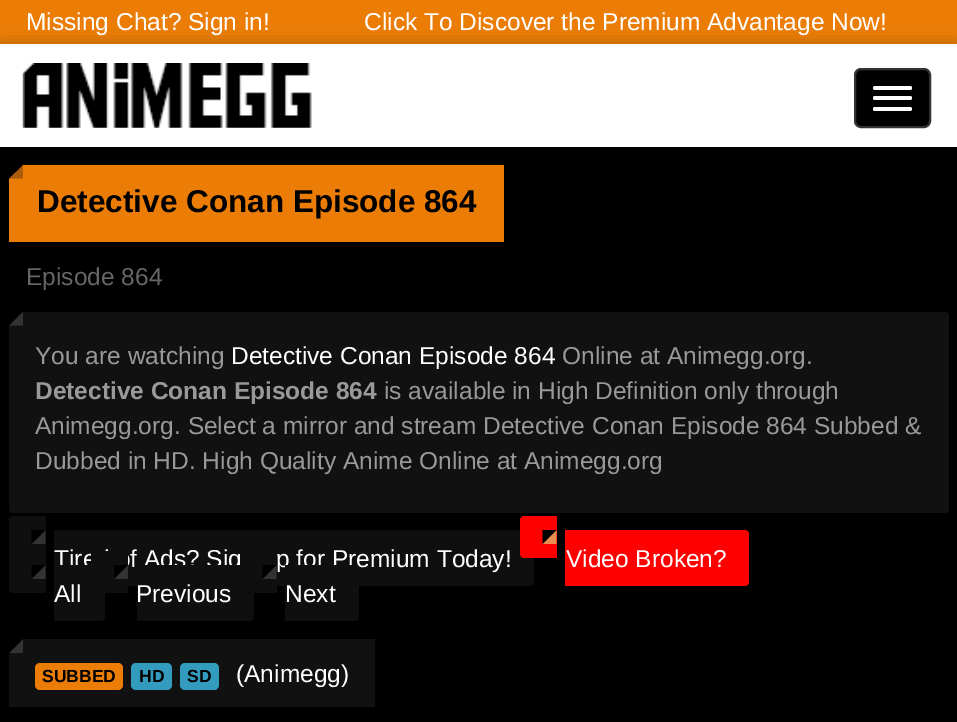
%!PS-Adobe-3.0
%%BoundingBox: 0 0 957 722
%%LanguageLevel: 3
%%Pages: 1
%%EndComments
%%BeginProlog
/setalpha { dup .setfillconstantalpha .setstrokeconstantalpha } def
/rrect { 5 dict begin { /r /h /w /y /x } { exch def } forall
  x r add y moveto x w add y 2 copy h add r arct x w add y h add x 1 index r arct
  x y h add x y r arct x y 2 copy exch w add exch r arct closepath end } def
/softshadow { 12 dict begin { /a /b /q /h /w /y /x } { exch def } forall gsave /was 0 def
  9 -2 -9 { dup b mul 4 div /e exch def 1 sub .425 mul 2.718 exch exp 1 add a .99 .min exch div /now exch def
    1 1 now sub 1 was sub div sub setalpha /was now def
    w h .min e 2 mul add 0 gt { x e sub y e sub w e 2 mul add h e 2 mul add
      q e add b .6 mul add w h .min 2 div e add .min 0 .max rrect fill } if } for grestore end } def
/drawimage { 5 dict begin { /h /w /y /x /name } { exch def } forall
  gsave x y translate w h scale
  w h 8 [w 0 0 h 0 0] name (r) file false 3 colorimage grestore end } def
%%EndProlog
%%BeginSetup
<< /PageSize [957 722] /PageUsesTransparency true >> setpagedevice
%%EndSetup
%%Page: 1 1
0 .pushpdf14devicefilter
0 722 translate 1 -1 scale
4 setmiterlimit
0.922 0.49 0.024 setrgbcolor
0 0 957 722 rectfill
0 setgray
0 44 957 105 0 7 0.25 softshadow
1 setgray
0 44 957 103 rectfill
(images/1.raw) 22 63 290 65 drawimage
0 setgray
855 69 75 58 6 rrect gsave fill grestore
0.2 setgray
2 setlinewidth
stroke
1 setgray
873 86 39 4 2 rrect fill
873 96 39 4 2 rrect fill
873 107 39 4 2 rrect fill
0 setgray
0 147 957 575 rectfill
0.922 0.49 0.024 setrgbcolor
9 165 495 77 rectfill
0.659 0.361 0.035 setrgbcolor
newpath 23 178.5 moveto 9 178.5 lineto 23 164.5 lineto closepath fill
gsave
0 165 957 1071 rectclip
0 setgray
newpath 9 178.5 moveto 9 164.5 lineto 23 164.5 lineto closepath fill
grestore
0.067 setgray
9 312 940 201 4 rrect fill
0.2 setgray
newpath 23 325.5 moveto 9 325.5 lineto 23 311.5 lineto closepath fill
0 setgray
newpath 9 325.5 moveto 9 311.5 lineto 23 311.5 lineto closepath fill
0.059 setgray
newpath 13 516 moveto 46 516 lineto 46 558 lineto 13 558 lineto 11 558 9 556 9 554 curveto 9 520 lineto 9 518 11 516 13 516 curveto closepath fill
newpath 54 530 moveto 530 530 lineto 532 530 534 532 534 534 curveto 534 582 lineto 534 584 532 586 530 586 curveto 54 586 lineto closepath fill
0.2 setgray
newpath 45.5 544 moveto 31.5 544 lineto 45.5 530 lineto closepath fill
0 setgray
newpath 31.5 544 moveto 31.5 530 lineto 45.5 530 lineto closepath fill
1 0 0 setrgbcolor
newpath 524 516 moveto 557 516 lineto 557 558 lineto 524 558 lineto 522 558 520 556 520 554 curveto 520 520 lineto 520 518 522 516 524 516 curveto closepath fill
newpath 565 530 moveto 745 530 lineto 747 530 749 532 749 534 curveto 749 582 lineto 749 584 747 586 745 586 curveto 565 586 lineto closepath fill
0.918 0.553 0.314 setrgbcolor
newpath 556.5 544 moveto 542.5 544 lineto 556.5 530 lineto closepath fill
0 setgray
newpath 542.5 544 moveto 542.5 530 lineto 556.5 530 lineto closepath fill
0.059 setgray
newpath 13 551 moveto 46 551 lineto 46 593 lineto 13 593 lineto 11 593 9 591 9 589 curveto 9 555 lineto 9 553 11 551 13 551 curveto closepath fill
0.2 setgray
newpath 45.5 579 moveto 31.5 579 lineto 45.5 565 lineto closepath fill
0 setgray
newpath 31.5 579 moveto 31.5 565 lineto 45.5 565 lineto closepath fill
0.067 setgray
9 639 366 68 rectfill
0.2 setgray
newpath 23 653 moveto 9 653 lineto 23 639 lineto closepath fill
0 setgray
newpath 9 653 moveto 9 639 lineto 23 639 lineto closepath fill
0.922 0.49 0.024 setrgbcolor
35 663 88 27 5 rrect fill
0.196 0.608 0.745 setrgbcolor
131 663 41 27 5 rrect fill
180 663 39 27 5 rrect fill
/LiberationSans-Regular [24.5 0 0 -24.5 0 0] selectfont
1 setgray
26 30 moveto (Missing Chat? Sign in!) show
364 30 moveto (Click To Discover the Premium Advantage Now!) show
/LiberationSans-Bold [31.5 0 0 -31.5 0 0] selectfont
0 setgray
37 212 moveto (Detective Conan Episode 864) show
/LiberationSans-Regular [24.5 0 0 -24.5 0 0] selectfont
0.4 setgray
26 285 moveto (Episode 864) show
0.6 setgray
35 364 moveto (You are watching) show
1 setgray
231 364 moveto (Detective Conan Episode 864) show
0.6 setgray
562 364 moveto (Online at Animegg.org.) show
/LiberationSans-Bold [24.5 0 0 -24.5 0 0] selectfont
35 399 moveto (Detective Conan Episode 864) show
/LiberationSans-Regular [24.5 0 0 -24.5 0 0] selectfont
384 399 moveto (is available in High Definition only through) show
35 434 moveto (Animegg.org. Select a mirror and stream Detective Conan Episode 864 Subbed &) show
35 469 moveto (Dubbed in HD. High Quality Anime Online at Animegg.org) show
1 setgray
54 567 moveto (Tired of Ads? Sig) show
276 567 moveto (p for Premium Today!) show
566 567 moveto (Video Broken?) show
0.059 setgray
newpath 54 565 moveto 101 565 lineto 103 565 105 567 105 569 curveto 105 617 lineto 105 619 103 621 101 621 curveto 54 621 lineto closepath fill
1 setgray
54 602 moveto (All) show
0.059 setgray
newpath 95 551 moveto 128 551 lineto 128 593 lineto 95 593 lineto 93 593 91 591 91 589 curveto 91 555 lineto 91 553 93 551 95 551 curveto closepath fill
newpath 137 565 moveto 250 565 lineto 252 565 254 567 254 569 curveto 254 617 lineto 254 619 252 621 250 621 curveto 137 621 lineto closepath fill
0.2 setgray
newpath 128 579 moveto 114 579 lineto 128 565 lineto closepath fill
0 setgray
newpath 114 579 moveto 114 565 lineto 128 565 lineto closepath fill
1 setgray
136 602 moveto (Previous) show
0.059 setgray
newpath 244 551 moveto 277 551 lineto 277 593 lineto 244 593 lineto 242 593 240 591 240 589 curveto 240 555 lineto 240 553 242 551 244 551 curveto closepath fill
newpath 285 565 moveto 355 565 lineto 357 565 359 567 359 569 curveto 359 617 lineto 359 619 357 621 355 621 curveto 285 621 lineto closepath fill
0.2 setgray
newpath 276.5 579 moveto 262.5 579 lineto 276.5 565 lineto closepath fill
0 setgray
newpath 262.5 579 moveto 262.5 565 lineto 276.5 565 lineto closepath fill
1 setgray
285 602 moveto (Next) show
/LiberationSans-Bold [17.5 0 0 -17.5 0 0] selectfont
0 setgray
42 682 moveto (SUBBED) show
139 682 moveto (HD) show
187 682 moveto (SD) show
/LiberationSans-Regular [24.5 0 0 -24.5 0 0] selectfont
1 setgray
236 682 moveto (\(Animegg\)) show
.poppdf14devicefilter showpage
%%EOF
